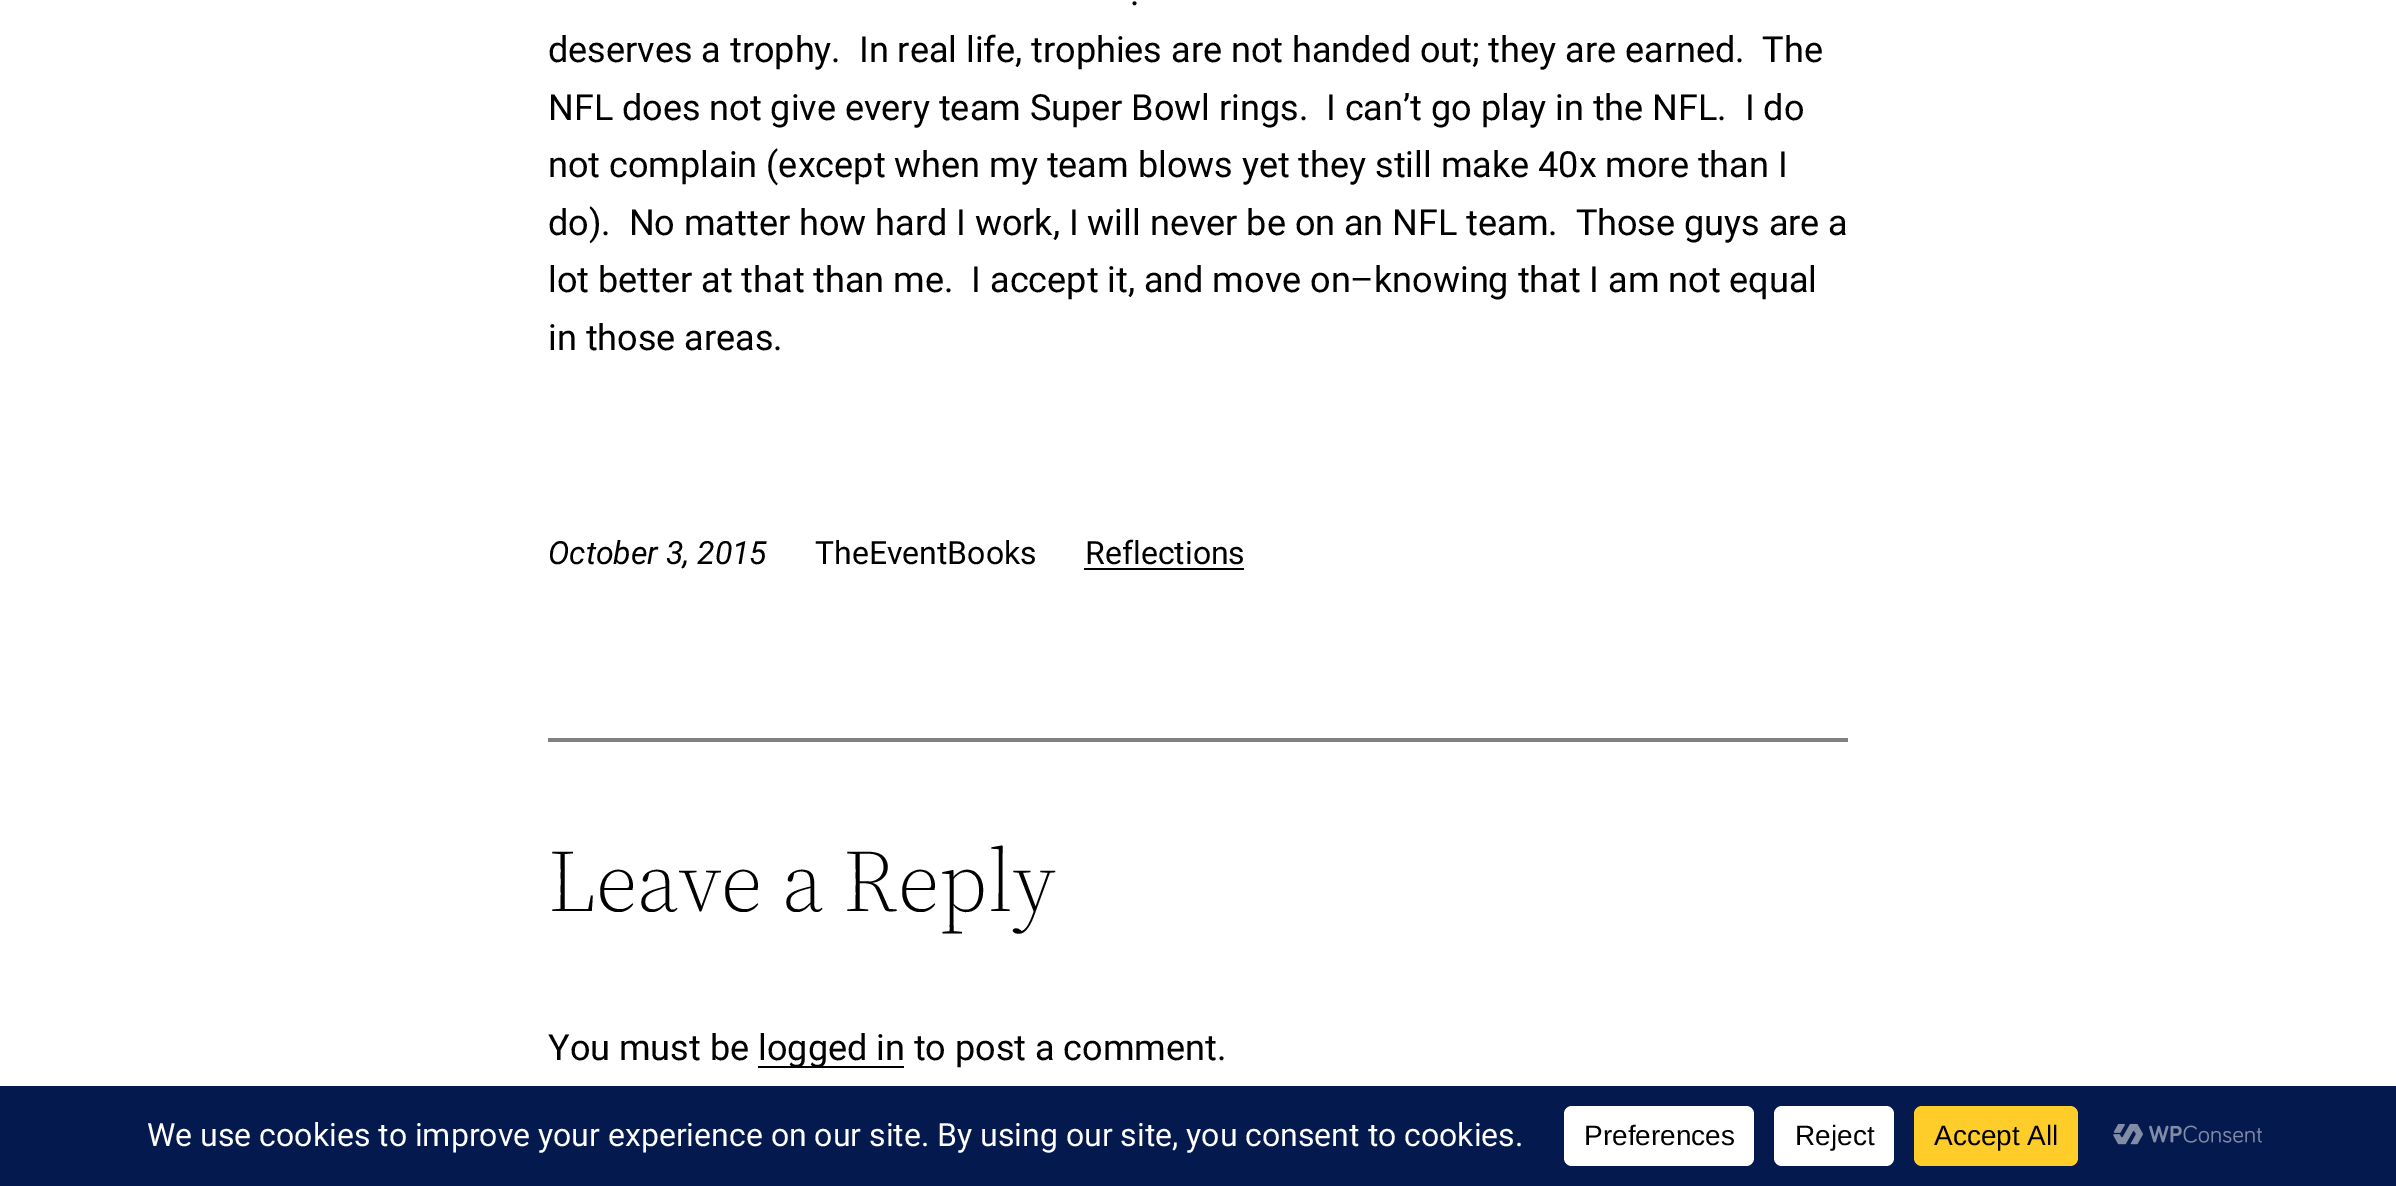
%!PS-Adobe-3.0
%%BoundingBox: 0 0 2396 1186
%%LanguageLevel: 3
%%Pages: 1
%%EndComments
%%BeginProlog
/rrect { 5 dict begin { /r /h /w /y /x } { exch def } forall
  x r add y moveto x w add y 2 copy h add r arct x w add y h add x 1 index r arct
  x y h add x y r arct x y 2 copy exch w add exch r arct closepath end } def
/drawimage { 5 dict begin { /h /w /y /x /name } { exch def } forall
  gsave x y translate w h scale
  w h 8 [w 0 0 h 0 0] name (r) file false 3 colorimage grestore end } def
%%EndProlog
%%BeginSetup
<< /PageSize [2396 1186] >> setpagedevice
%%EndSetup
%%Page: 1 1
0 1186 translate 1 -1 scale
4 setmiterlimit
1 setgray
0 0 2396 1186 rectfill
0 setgray
1084 568 160 2 rectfill
0.502 setgray
548 738 1300 4 rectfill
0 setgray
758 1066 146 2 rectfill
0.016 0.098 0.306 setrgbcolor
0 1086 2396 100 rectfill
1 setgray
1564 1106 190 60 8 rrect fill
1774 1106 120 60 8 rrect fill
1 0.804 0.165 setrgbcolor
1914 1106 164 60 8 rrect fill
(images/1.raw) 2113 1123 149 22 drawimage
/Roboto-Regular [36 0 0 -36 0 0] selectfont
0 setgray
1130 5 moveto (.) show
548 62 moveto (deserves a trophy.  In real life, trophies are not handed out; they are earned.  The) show
548 120 moveto (NFL does not give every team Super Bowl rings.  I can’t go play in the NFL.  I do) show
548 177 moveto (not complain \(except when my team blows yet they still make 40x more than I) show
548 235 moveto (do\).  No matter how hard I work, I will never be on an NFL team.  Those guys are a) show
548 292 moveto (lot better at that than me.  I accept it, and move on–knowing that I am not equal) show
548 350 moveto (in those areas.) show
/Roboto-Italic [32 0 0 -32 0 0] selectfont
548 564 moveto (October 3, 2015) show
/Roboto-Regular [32 0 0 -32 0 0] selectfont
815 564 moveto (TheEventBooks) show
1085 564 moveto (Reflections) show
/SourceSerif4-Light [88 0 0 -88 0 0] selectfont
548 911 moveto (Leave a Reply) show
/Roboto-Regular [36 0 0 -36 0 0] selectfont
548 1060 moveto (You must be) show
758 1060 moveto (logged in to post a comment.) show
/Roboto-Regular [32 0 0 -32 0 0] selectfont
1 setgray
147 1146 moveto (We use cookies to improve your experience on our site. By using our site, you consent to cookies.) show
/LiberationSans-Regular [28 0 0 -28 0 0] selectfont
0 setgray
1584 1145 moveto (Preferences) show
1795 1145 moveto (Reject) show
1934 1145 moveto (Accept All) show
showpage
%%EOF
